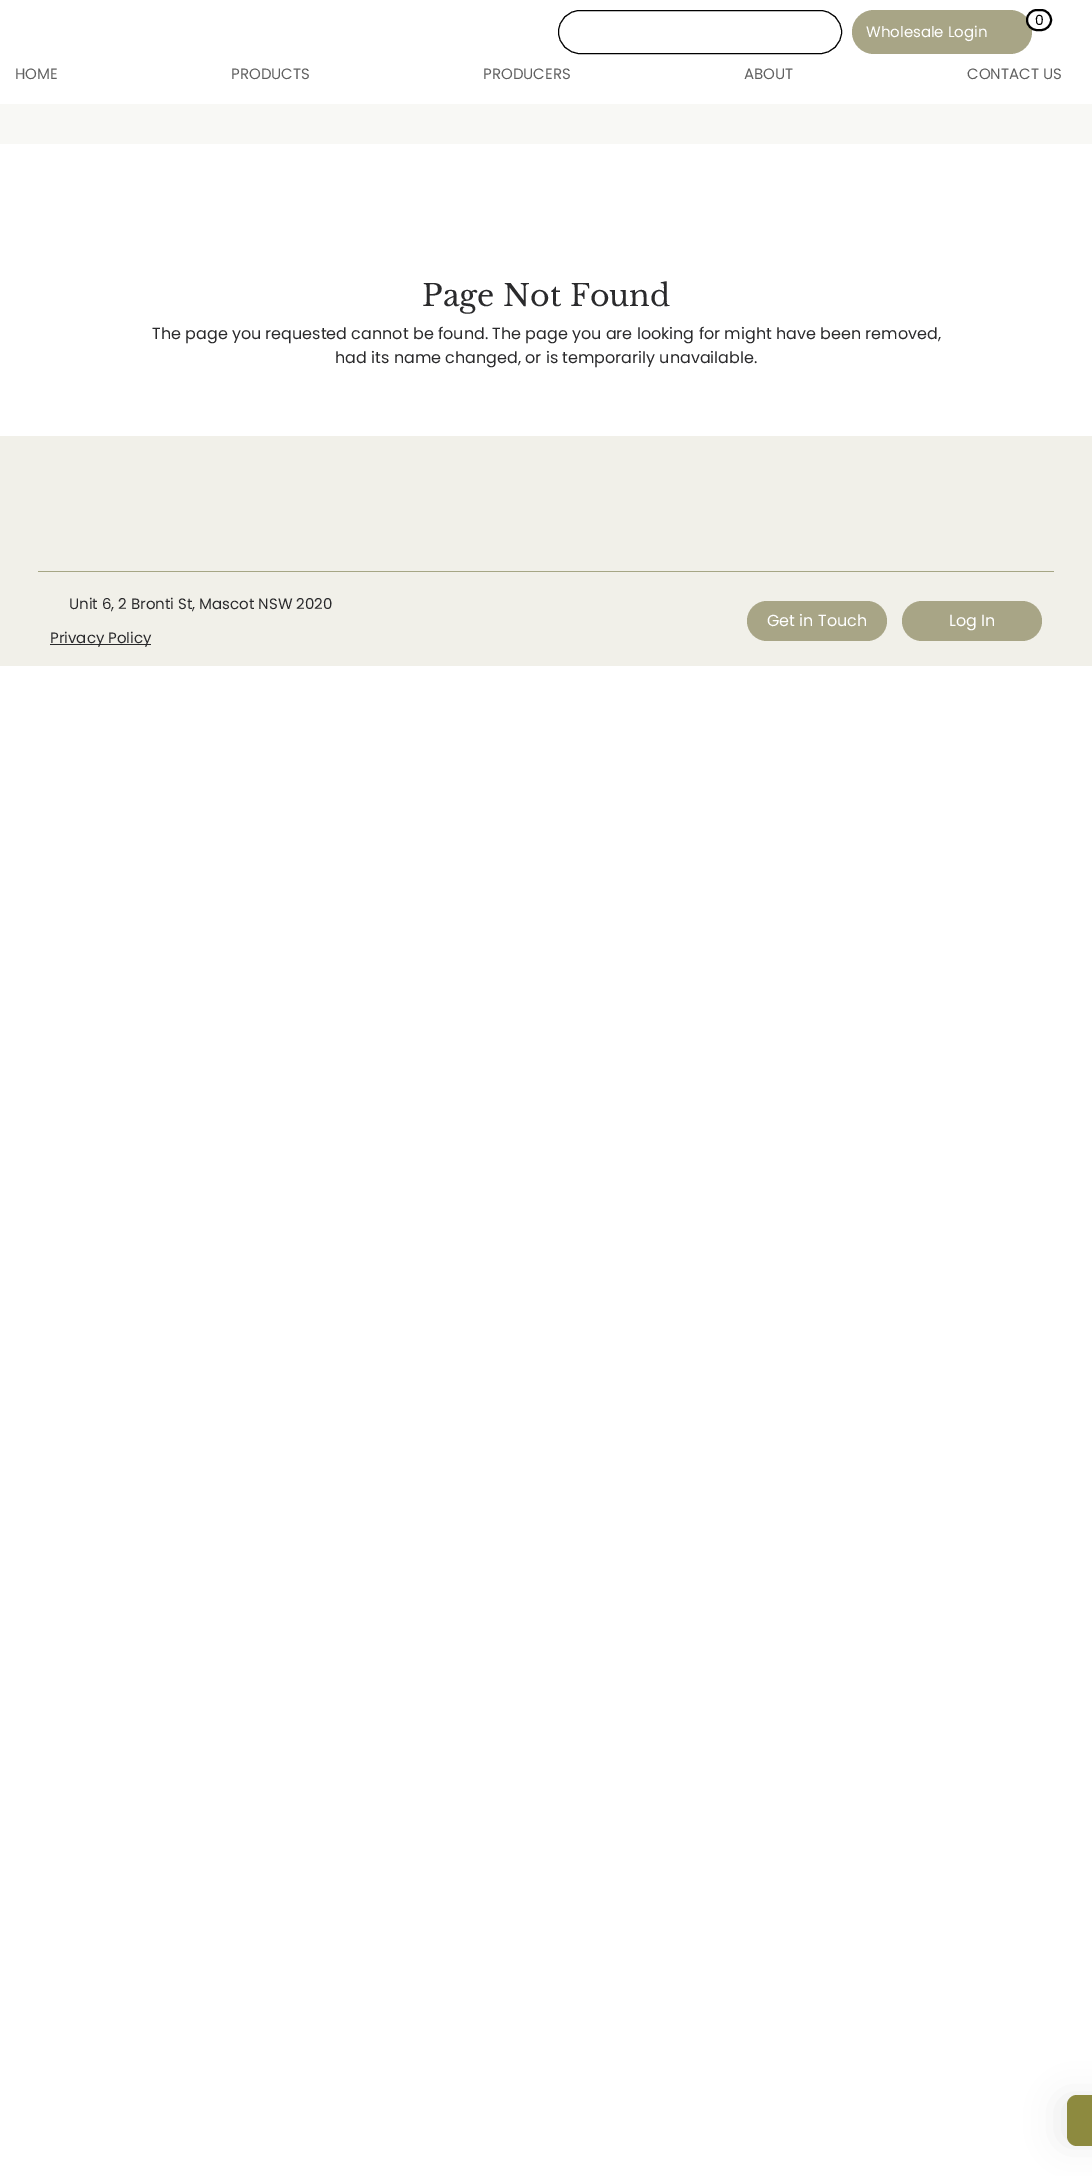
%!PS-Adobe-3.0
%%BoundingBox: 0 0 1092 2176
%%LanguageLevel: 3
%%Pages: 1
%%EndComments
%%BeginProlog
/setalpha { dup .setfillconstantalpha .setstrokeconstantalpha } def
/rrect { 5 dict begin { /r /h /w /y /x } { exch def } forall
  x r add y moveto x w add y 2 copy h add r arct x w add y h add x 1 index r arct
  x y h add x y r arct x y 2 copy exch w add exch r arct closepath end } def
/softshadow { 12 dict begin { /a /b /q /h /w /y /x } { exch def } forall gsave /was 0 def
  9 -2 -9 { dup b mul 4 div /e exch def 1 sub .425 mul 2.718 exch exp 1 add a .99 .min exch div /now exch def
    1 1 now sub 1 was sub div sub setalpha /was now def
    w h .min e 2 mul add 0 gt { x e sub y e sub w e 2 mul add h e 2 mul add
      q e add b .6 mul add w h .min 2 div e add .min 0 .max rrect fill } if } for grestore end } def
%%EndProlog
%%BeginSetup
<< /PageSize [1092 2176] /PageUsesTransparency true >> setpagedevice
%%EndSetup
%%Page: 1 1
0 .pushpdf14devicefilter
0 2176 translate 1 -1 scale
4 setmiterlimit
1 setgray
0 0 1092 2176 rectfill
0 setgray
558.5 10.5 283 43 21.5 rrect stroke
0.659 0.647 0.525 setrgbcolor
852 10 180 44 22 rrect fill
1 setgray
1027 10 24 20 10 rrect gsave fill grestore
0 setgray
2 setlinewidth
stroke
0.973 0.973 0.961 setrgbcolor
0 104 1092 40 rectfill
0.945 0.941 0.914 setrgbcolor
0 436 1092 230 rectfill
0.651 0.651 0.522 setrgbcolor
38 571 1016 1 rectfill
0.165 0.165 0.173 setrgbcolor
50 644 101 1 rectfill
0.659 0.647 0.525 setrgbcolor
747 601 140 40 20 rrect fill
902 601 140 40 20 rrect fill
0 setgray
1057 2095 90 51 10 15 0.07 softshadow
0.553 0.541 0.247 setrgbcolor
newpath 1077 2095 moveto 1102 2095 lineto 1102 2146 lineto 1077 2146 lineto 1071.5 2146 1067 2141.5 1067 2136 curveto 1067 2105 lineto 1067 2099.5 1071.5 2095 1077 2095 curveto closepath fill
/Poppins-Regular [14 0 0 -14 0 0] selectfont
0 setgray
1035 25 moveto (0) show
/Poppins-Regular [15 0 0 -15 0 0] selectfont
1 setgray
866 37 moveto (Wholesale Login) show
0.376 setgray
15 79 moveto (HOME) show
231 79 moveto (PRODUCTS) show
483 79 moveto (PRODUCERS) show
744 79 moveto (ABOUT) show
967 79 moveto (CONTACT US) show
/LibreBaskerville-Regular [30 0 0 -30 0 0] selectfont
0.165 0.165 0.173 setrgbcolor
422 306 moveto (Page Not Found) show
/Poppins-Regular [16 0 0 -16 0 0] selectfont
152 339 moveto (The page you requested cannot be found. The page you are looking for might have been removed,) show
335 363 moveto (had its name changed, or is temporarily unavailable.) show
/Poppins-Regular [15 0 0 -15 0 0] selectfont
69 609 moveto (Unit 6, 2 Bronti St, Mascot NSW 2020) show
50 643 moveto (Privacy Policy) show
/Poppins-Regular [16 0 0 -16 0 0] selectfont
1 setgray
767 626 moveto (Get in Touch) show
949 626 moveto (Log In) show
.poppdf14devicefilter showpage
%%EOF
